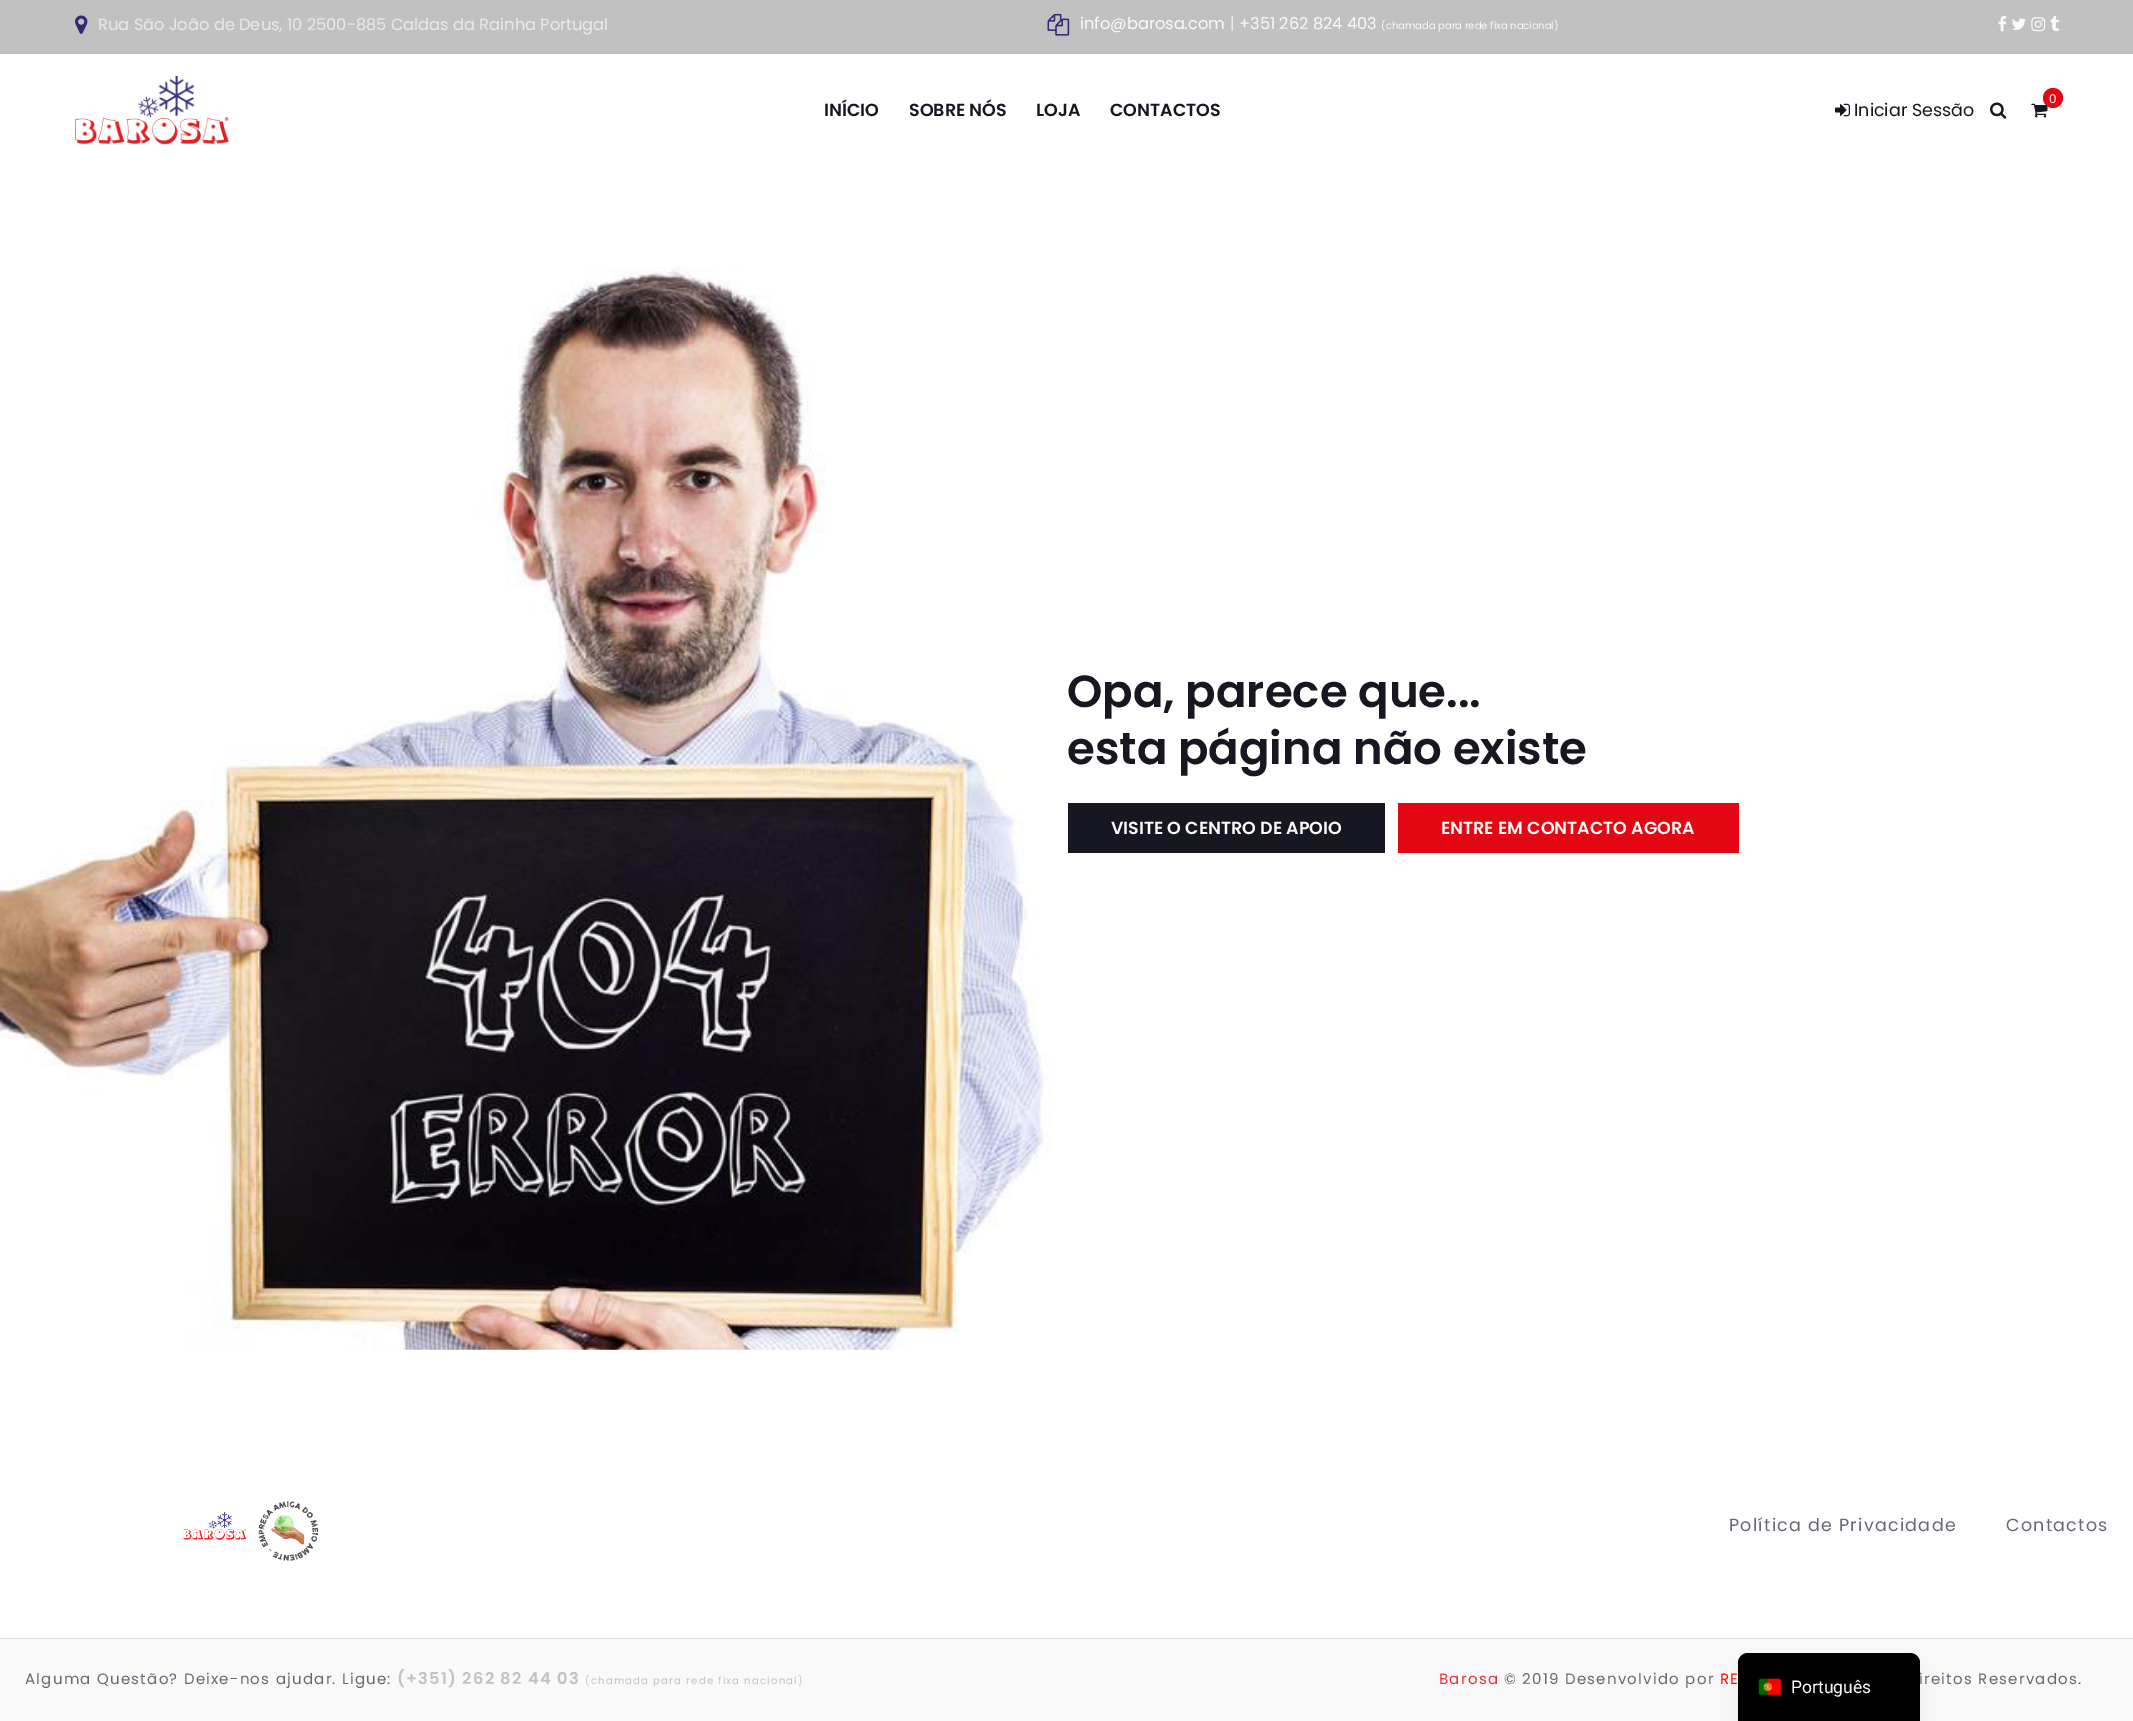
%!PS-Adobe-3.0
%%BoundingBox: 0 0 2133 1721
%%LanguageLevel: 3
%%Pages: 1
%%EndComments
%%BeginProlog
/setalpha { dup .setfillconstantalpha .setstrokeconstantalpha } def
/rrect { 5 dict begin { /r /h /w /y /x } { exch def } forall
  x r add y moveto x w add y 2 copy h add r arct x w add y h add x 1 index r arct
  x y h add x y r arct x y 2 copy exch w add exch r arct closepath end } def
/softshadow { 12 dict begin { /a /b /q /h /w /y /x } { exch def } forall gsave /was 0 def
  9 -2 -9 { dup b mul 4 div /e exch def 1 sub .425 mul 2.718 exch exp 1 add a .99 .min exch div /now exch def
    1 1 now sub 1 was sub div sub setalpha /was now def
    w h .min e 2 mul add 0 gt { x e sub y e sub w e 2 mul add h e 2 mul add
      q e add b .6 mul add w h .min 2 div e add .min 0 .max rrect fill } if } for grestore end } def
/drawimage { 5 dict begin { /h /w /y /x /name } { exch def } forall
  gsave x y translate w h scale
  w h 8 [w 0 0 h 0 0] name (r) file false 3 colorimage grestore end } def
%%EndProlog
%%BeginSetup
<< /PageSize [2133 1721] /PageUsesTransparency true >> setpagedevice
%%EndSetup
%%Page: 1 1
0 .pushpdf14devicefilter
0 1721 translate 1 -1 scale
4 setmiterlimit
1 setgray
0 0 2133 1721 rectfill
0.757 setgray
0 0 2133 54 rectfill
(images/1.raw) 75 15 13 19 drawimage
(images/2.raw) 1047 13 23 23 drawimage
(images/3.raw) 1998 16 9 16 drawimage
(images/4.raw) 2012 18 14 12 drawimage
(images/5.raw) 2031 17 15 15 drawimage
(images/6.raw) 2050 16 10 16 drawimage
(images/7.raw) 75 76 154 69 drawimage
(images/8.raw) 2031 103 17 15 drawimage
0.89 0.024 0.075 setrgbcolor
newpath 2053 98 10 0 360 arc closepath fill
(images/9.raw) 1835 103 15 14 drawimage
(images/10.raw) 1990 102 17 17 drawimage
(images/11.raw) 0 267 1051 1083 drawimage
0.09 0.09 0.129 setrgbcolor
1068 803 317 50 rectfill
0.89 0.024 0.075 setrgbcolor
1398 803 341 50 rectfill
(images/12.raw) 182 1501 137 60 drawimage
0.976 setgray
0 1639 2133 82 rectfill
0.863 0.863 0.875 setrgbcolor
0 1638 2133 1 rectfill
0 setgray
1738 1665 182 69 10 12.5 0.05 softshadow
newpath 1748 1653 moveto 1910 1653 lineto 1915.5 1653 1920 1657.5 1920 1663 curveto 1920 1721 lineto 1738 1721 lineto 1738 1663 lineto 1738 1657.5 1742.5 1653 1748 1653 curveto closepath fill
(images/13.raw) 1758 1678 24 17 drawimage
/Poppins-Regular [16.25 0 0 -16.25 0 0] selectfont
0.918 setgray
98 30 moveto (Rua São João de Deus, 10 2500-885 Caldas da Rainha Portugal) show
0.98 setgray
1080 29 moveto (info@barosa.com) show
0.918 setgray
1230 29 moveto (|) show
0.98 setgray
1239 29 moveto (+351 262 824 403) show
/Poppins-Regular [10 0 0 -10 0 0] selectfont
1381 29 moveto (\(chamada para rede fixa nacional\)) show
/Poppins-SemiBold [17.5 0 0 -17.5 0 0] selectfont
0.09 0.09 0.129 setrgbcolor
824 116 moveto (INÍCIO) show
909 116 moveto (SOBRE NÓS) show
1036 116 moveto (LOJA) show
1110 116 moveto (CONTACTOS) show
/Poppins-Regular [12 0 0 -12 0 0] selectfont
0.98 setgray
2049 103 moveto (0) show
/Poppins-Regular [17.5 0 0 -17.5 0 0] selectfont
0.09 0.09 0.129 setrgbcolor
1854 116 moveto (Iniciar Sessão) show
/Poppins-SemiBold [45 0 0 -45 0 0] selectfont
1067 707 moveto (Opa, parece que...) show
1067 764 moveto (esta página não existe) show
/Poppins-SemiBold [17.5 0 0 -17.5 0 0] selectfont
0.98 setgray
1111 834 moveto (VISITE O CENTRO DE APOIO) show
1441 834 moveto (ENTRE EM CONTACTO AGORA) show
/Poppins-Regular [17.5 0 0 -17.5 0 0] selectfont
0.408 0.408 0.463 setrgbcolor
1729 1531 moveto 1.25 0 (Política de Privacidade) ashow
2006 1531 moveto 1.25 0 (Contactos) ashow
/Poppins-Regular [15 0 0 -15 0 0] selectfont
25 1684 moveto 1.25 0 (Alguma Questão? Deixe-nos ajudar. Ligue:) ashow
/Poppins-SemiBold [16.25 0 0 -16.25 0 0] selectfont
0.757 setgray
397 1684 moveto 1.25 0 (\(+351\) 262 82 44 03) ashow
/Poppins-Regular [10 0 0 -10 0 0] selectfont
585 1684 moveto 1.25 0 (\(chamada para rede fixa nacional\)) ashow
/Poppins-Regular [15 0 0 -15 0 0] selectfont
0.898 0.188 0.212 setrgbcolor
1439 1684 moveto 1.25 0 (Barosa) ashow
0.408 0.408 0.463 setrgbcolor
1504 1684 moveto 1.25 0 (© 2019 Desenvolvido por) ashow
1 0 0 setrgbcolor
1720 1684 moveto 1.25 0 (RE) ashow
0.408 0.408 0.463 setrgbcolor
1919 1684 moveto 1.25 0 (ireitos Reservados.) ashow
/Roboto-Regular [17.5 0 0 -17.5 0 0] selectfont
0.98 setgray
1791 1693 moveto (Português) show
.poppdf14devicefilter showpage
%%EOF
